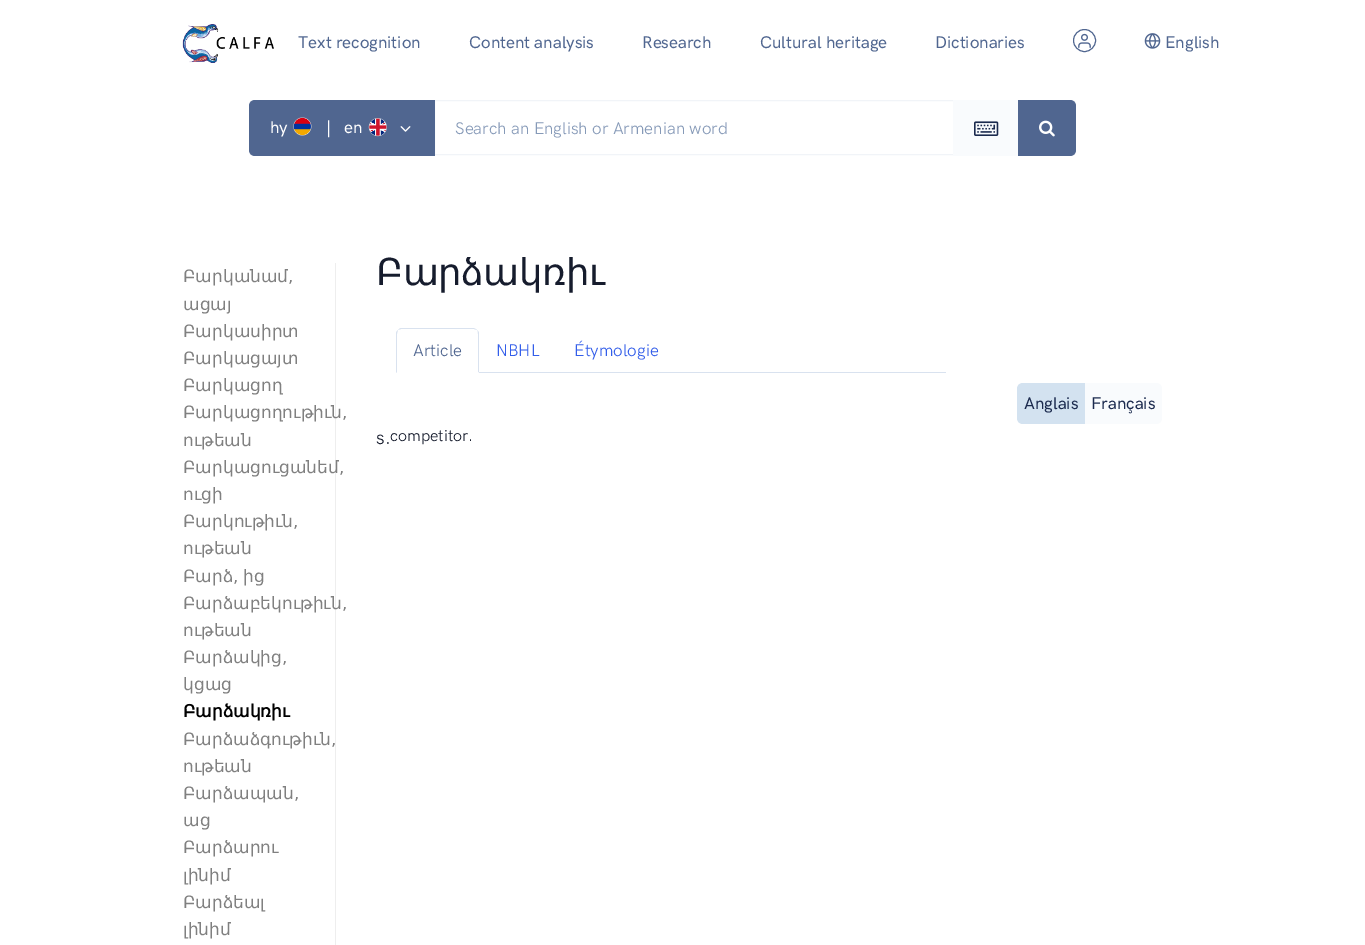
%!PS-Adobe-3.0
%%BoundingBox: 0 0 1365 945
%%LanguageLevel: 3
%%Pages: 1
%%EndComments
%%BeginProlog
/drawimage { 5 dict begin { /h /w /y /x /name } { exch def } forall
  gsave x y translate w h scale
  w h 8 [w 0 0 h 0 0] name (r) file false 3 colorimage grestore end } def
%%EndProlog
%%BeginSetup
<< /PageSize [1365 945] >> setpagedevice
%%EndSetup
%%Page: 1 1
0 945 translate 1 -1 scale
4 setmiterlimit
1 setgray
0 0 1365 945 rectfill
(images/1.raw) 182 24 92 39 drawimage
0.314 0.4 0.565 setrgbcolor
newpath 1084.5 40.5 11 0 360 arc closepath stroke
(images/2.raw) 1078 33 13 15 drawimage
(images/3.raw) 1144 33 17 16 drawimage
0.945 0.957 0.973 setrgbcolor
434.5 100.5 519 54 rectstroke
0.314 0.4 0.565 setrgbcolor
newpath 255 100 moveto 435 100 lineto 435 156 lineto 255 156 lineto 251.5 156 249 153.5 249 150 curveto 249 106 lineto 249 102.5 251.5 100 255 100 curveto closepath fill
(images/4.raw) 293 117 19 19 drawimage
(images/5.raw) 368 118 19 19 drawimage
(images/6.raw) 400 126 11 6 drawimage
0.976 0.984 0.992 setrgbcolor
953 100 65 56 rectfill
(images/7.raw) 974 121 25 15 drawimage
0.314 0.4 0.565 setrgbcolor
newpath 1018 100 moveto 1070 100 lineto 1073.5 100 1076 102.5 1076 106 curveto 1076 150 lineto 1076 153.5 1073.5 156 1070 156 curveto 1018 156 lineto closepath fill
(images/8.raw) 1039 120 16 17 drawimage
0.933 setgray
335 263 1 682 rectfill
0.851 0.886 0.937 setrgbcolor
479 372 467 1 rectfill
newpath 402 328 moveto 400 328 399 329 398 330 curveto 401 329 lineto 474 329 lineto 477 330 lineto 476 329 474 328 473 328 curveto closepath fill
newpath 479 373 moveto 479 334 lineto 479 332 478 331 477 330 curveto 478 331 478 332 478 334 curveto 478 372 lineto closepath fill
1 setgray
newpath 479 373 moveto 478 372 lineto 397 372 lineto 396 373 lineto closepath fill
0.851 0.886 0.937 setrgbcolor
newpath 396 373 moveto 397 372 lineto 397 334 lineto 397 332 398 331 398 330 curveto 397 331 396 332 396 334 curveto closepath fill
0.976 0.984 0.992 setrgbcolor
newpath 1084 383 moveto 1156 383 lineto 1159.5 383 1162 385.5 1162 389 curveto 1162 418 lineto 1162 421.5 1159.5 424 1156 424 curveto 1084 424 lineto closepath fill
0.827 0.886 0.941 setrgbcolor
newpath 1023 383 moveto 1085 383 lineto 1085 424 lineto 1023 424 lineto 1019.5 424 1017 421.5 1017 418 curveto 1017 389 lineto 1017 385.5 1019.5 383 1023 383 curveto closepath fill
/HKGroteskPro-Medium [17 0 0 -17 0 0] selectfont
0.314 0.4 0.565 setrgbcolor
298 48 moveto (Text recognition) show
469 48 moveto (Content analysis) show
642 48 moveto (Research) show
760 48 moveto (Cultural heritage) show
935 48 moveto (Dictionaries) show
1165 48 moveto (English) show
1 setgray
270 133 moveto (hy) show
326 133 moveto (|   en) show
/HKGroteskPro-Regular [17 0 0 -17 0 0] selectfont
0.525 0.604 0.722 setrgbcolor
455 134 moveto (Search an English or Armenian word) show
/DejaVuSans-Regular [17 0 0 -17 0 0] selectfont
0.502 setgray
183 282 moveto (Բարկանամ,) show
183 310 moveto (ացայ) show
183 337 moveto (Բարկասիրտ) show
183 364 moveto (Բարկացայտ) show
183 391 moveto (Բարկացող) show
183 418 moveto (Բարկացողութիւն,) show
183 446 moveto (ութեան) show
183 473 moveto (Բարկացուցանեմ,) show
183 500 moveto (ուցի) show
183 527 moveto (Բարկութիւն,) show
183 554 moveto (ութեան) show
183 582 moveto -1 0 32 (Բարձ, ից) widthshow
183 609 moveto (Բարձաբեկութիւն,) show
183 636 moveto (ութեան) show
183 663 moveto (Բարձակից,) show
183 690 moveto (կցաց) show
/DejaVuSans-Bold [17 0 0 -17 0 0] selectfont
0 setgray
183 717 moveto (Բարձակռիւ) show
/DejaVuSans-Regular [17 0 0 -17 0 0] selectfont
0.502 setgray
183 745 moveto (Բարձաձգութիւն,) show
183 772 moveto (ութեան) show
183 799 moveto (Բարձապան,) show
183 826 moveto (աց) show
183 853 moveto (Բարձարու) show
183 881 moveto (լինիմ) show
183 908 moveto (Բարձեալ) show
183 935 moveto (լինիմ) show
/DejaVuSans-Regular [37 0 0 -37 0 0] selectfont
0.086 0.11 0.176 setrgbcolor
376 285 moveto -0.4 0 (Բարձակռիւ) ashow
/HKGroteskPro-Regular [17 0 0 -17 0 0] selectfont
0.314 0.4 0.565 setrgbcolor
413 356 moveto (Article) show
0.2 0.369 0.918 setrgbcolor
496 356 moveto (NBHL) show
574 356 moveto (Étymologie) show
/HKGroteskPro-Medium [17 0 0 -17 0 0] selectfont
0.106 0.165 0.306 setrgbcolor
1024 409 moveto (Anglais) show
1091 409 moveto (Français) show
/HKGroteskPro-Regular [19 0 0 -19 0 0] selectfont
0.086 0.11 0.176 setrgbcolor
376 444 moveto (s.) show
/HKGroteskPro-Regular [16 0 0 -16 0 0] selectfont
390 441 moveto (competitor.) show
showpage
%%EOF
